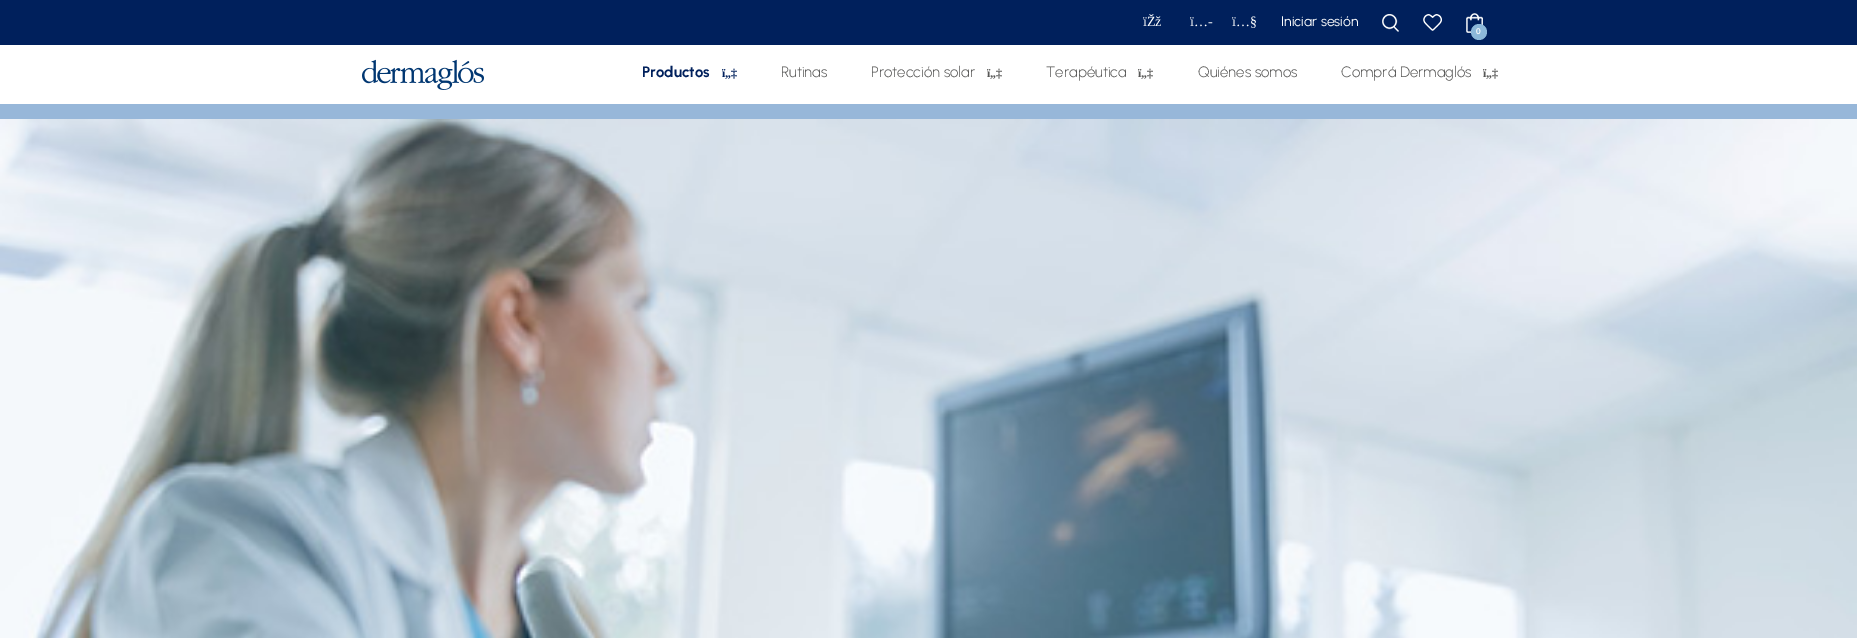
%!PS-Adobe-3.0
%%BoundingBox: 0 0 1857 638
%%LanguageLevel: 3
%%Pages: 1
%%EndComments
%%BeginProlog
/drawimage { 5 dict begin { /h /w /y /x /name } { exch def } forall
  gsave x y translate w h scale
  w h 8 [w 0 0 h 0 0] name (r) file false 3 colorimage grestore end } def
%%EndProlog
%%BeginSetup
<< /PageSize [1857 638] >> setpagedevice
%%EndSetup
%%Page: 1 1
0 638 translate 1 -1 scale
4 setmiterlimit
1 setgray
0 0 1857 638 rectfill
0 0.125 0.361 setrgbcolor
0 0 1857 45 rectfill
(images/1.raw) 1382 14 17 18 drawimage
(images/2.raw) 1423 14 19 17 drawimage
(images/3.raw) 1466 13 17 20 drawimage
0.549 0.722 0.851 setrgbcolor
newpath 1479 32 8 0 360 arc closepath fill
(images/4.raw) 362 59 122 31 drawimage
0.592 0.718 0.851 setrgbcolor
0 104 1857 15 rectfill
(images/5.raw) 0 119 1857 519 drawimage
/LiberationSerif-Regular [14 0 0 -14 0 0] selectfont
1 setgray
1143 26 moveto (ïŽž) show
1190 26 moveto (ï…-) show
1232 26 moveto (ï…§) show
/Urbanist-Regular [14 0 0 -14 0 0] selectfont
1281 26 moveto (Iniciar sesión) show
/Lato-Bold [8 0 0 -8 0 0] selectfont
1476 34 moveto (0) show
/Urbanist-Bold [15 0 0 -15 0 0] selectfont
0 0.125 0.361 setrgbcolor
642 77 moveto (Productos) show
/LiberationSerif-Bold [12 0 0 -12 0 0] selectfont
722 77 moveto (ï„‡) show
/Urbanist-Light [15 0 0 -15 0 0] selectfont
0.341 0.341 0.337 setrgbcolor
781 77 moveto (Rutinas) show
871 77 moveto (Protección solar) show
/LiberationSerif-Bold [12 0 0 -12 0 0] selectfont
987 77 moveto (ï„‡) show
/Urbanist-Light [15 0 0 -15 0 0] selectfont
1046 77 moveto (Terapéutica) show
/LiberationSerif-Bold [12 0 0 -12 0 0] selectfont
1138 77 moveto (ï„‡) show
/Urbanist-Light [15 0 0 -15 0 0] selectfont
1198 77 moveto (Quiénes somos) show
1341 77 moveto (Comprá Dermaglós) show
/LiberationSerif-Bold [12 0 0 -12 0 0] selectfont
1483 77 moveto (ï„‡) show
showpage
%%EOF
